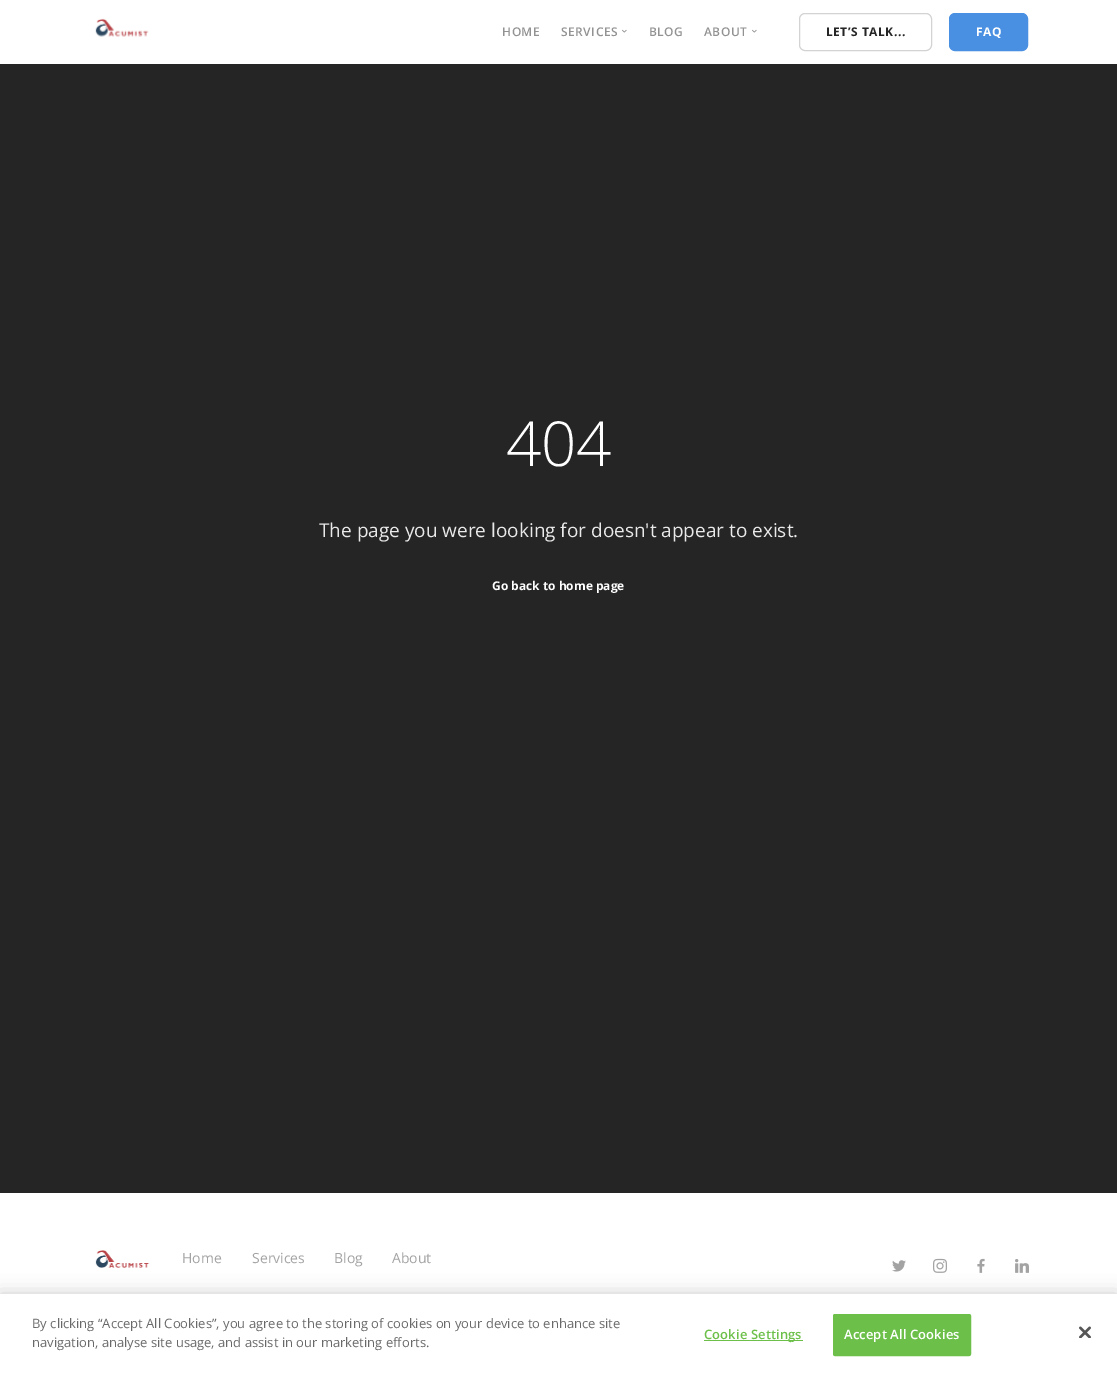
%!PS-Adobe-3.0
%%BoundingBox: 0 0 1117 1376
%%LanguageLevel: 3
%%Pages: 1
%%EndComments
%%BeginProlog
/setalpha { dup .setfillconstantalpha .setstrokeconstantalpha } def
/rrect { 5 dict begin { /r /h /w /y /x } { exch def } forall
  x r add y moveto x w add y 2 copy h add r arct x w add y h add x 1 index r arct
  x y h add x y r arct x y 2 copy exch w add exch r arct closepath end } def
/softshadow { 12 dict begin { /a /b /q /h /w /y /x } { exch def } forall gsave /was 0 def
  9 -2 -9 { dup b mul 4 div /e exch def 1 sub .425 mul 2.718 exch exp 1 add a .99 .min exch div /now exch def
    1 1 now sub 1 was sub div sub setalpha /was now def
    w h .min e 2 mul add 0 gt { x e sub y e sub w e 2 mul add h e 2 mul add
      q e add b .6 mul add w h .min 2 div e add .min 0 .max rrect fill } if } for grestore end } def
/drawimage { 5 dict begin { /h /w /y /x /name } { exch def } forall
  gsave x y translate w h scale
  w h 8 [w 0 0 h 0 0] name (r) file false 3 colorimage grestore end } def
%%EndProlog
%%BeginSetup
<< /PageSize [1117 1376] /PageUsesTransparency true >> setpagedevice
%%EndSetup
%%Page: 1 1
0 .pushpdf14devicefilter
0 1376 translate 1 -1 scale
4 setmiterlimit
1 setgray
0 0 1117 1376 rectfill
(images/1.raw) 95 18 54 19 drawimage
(images/2.raw) 622 29 5 4 drawimage
(images/2.raw) 752 29 5 4 drawimage
0.827 setgray
799.5 13.5 132 37 5.5 rrect stroke
0.29 0.565 0.886 setrgbcolor
949.5 13.5 78 37 5.5 rrect gsave fill grestore
stroke
0.145 setgray
0 64 1117 1129 rectfill
(images/3.raw) 95 1250 55 18 drawimage
(images/4.raw) 892 1260 14 12 drawimage
(images/5.raw) 933 1258 14 15 drawimage
(images/6.raw) 977 1258 8 15 drawimage
(images/7.raw) 1015 1259 14 14 drawimage
0 setgray
0 1294 1117 82 0 9 0.2 softshadow
1 setgray
0 1294 1117 82 rectfill
0.424 0.753 0.29 setrgbcolor
704 1340 99 1 rectfill
833.5 1314.5 137 41 1.5 rrect gsave fill grestore
stroke
(images/8.raw) 1079 1326 12 12 drawimage
/OpenSans-SemiBold [12 0 0 -12 0 0] selectfont
0.573 setgray
502 36 moveto 0.5 0 (HOME) ashow
561 36 moveto 0.5 0 (SERVICES) ashow
649 36 moveto 0.5 0 (BLOG) ashow
704 36 moveto 0.5 0 (ABOUT) ashow
/OpenSans-Bold [12 0 0 -12 0 0] selectfont
0.145 setgray
826 36 moveto 0.5 0 (LET’S TALK...) ashow
1 setgray
976 36 moveto 0.5 0 (FAQ) ashow
/OpenSans-Light [62 0 0 -62 0 0] selectfont
506 466 moveto -0.5 0 (404) ashow
/OpenSans-Regular [19 0 0 -19 0 0] selectfont
0.914 setgray
319 537 moveto (The page you were looking for doesn't appear to exist.) show
/OpenSans-Bold [12 0 0 -12 0 0] selectfont
1 setgray
492 590 moveto (Go back to home page) show
/OpenSans-Regular [14 0 0 -14 0 0] selectfont
0.639 setgray
182 1263 moveto (Home) show
252 1263 moveto (Services) show
334 1263 moveto (Blog) show
392 1263 moveto (About) show
/OpenSans-Regular [13 0 0 -13 0 0] selectfont
0.412 setgray
32 1328 moveto (By clicking “Accept All Cookies”, you agree to the storing of cookies on your device to enhance site) show
32 1347 moveto (navigation, analyse site usage, and assist in our marketing efforts.) show
/OpenSans-SemiBold [13 0 0 -13 0 0] selectfont
0.424 0.753 0.29 setrgbcolor
704 1339 moveto 0.1 0 (Cookie Settings) ashow
1 setgray
844 1339 moveto 0.1 0 (Accept All Cookies) ashow
.poppdf14devicefilter showpage
%%EOF
